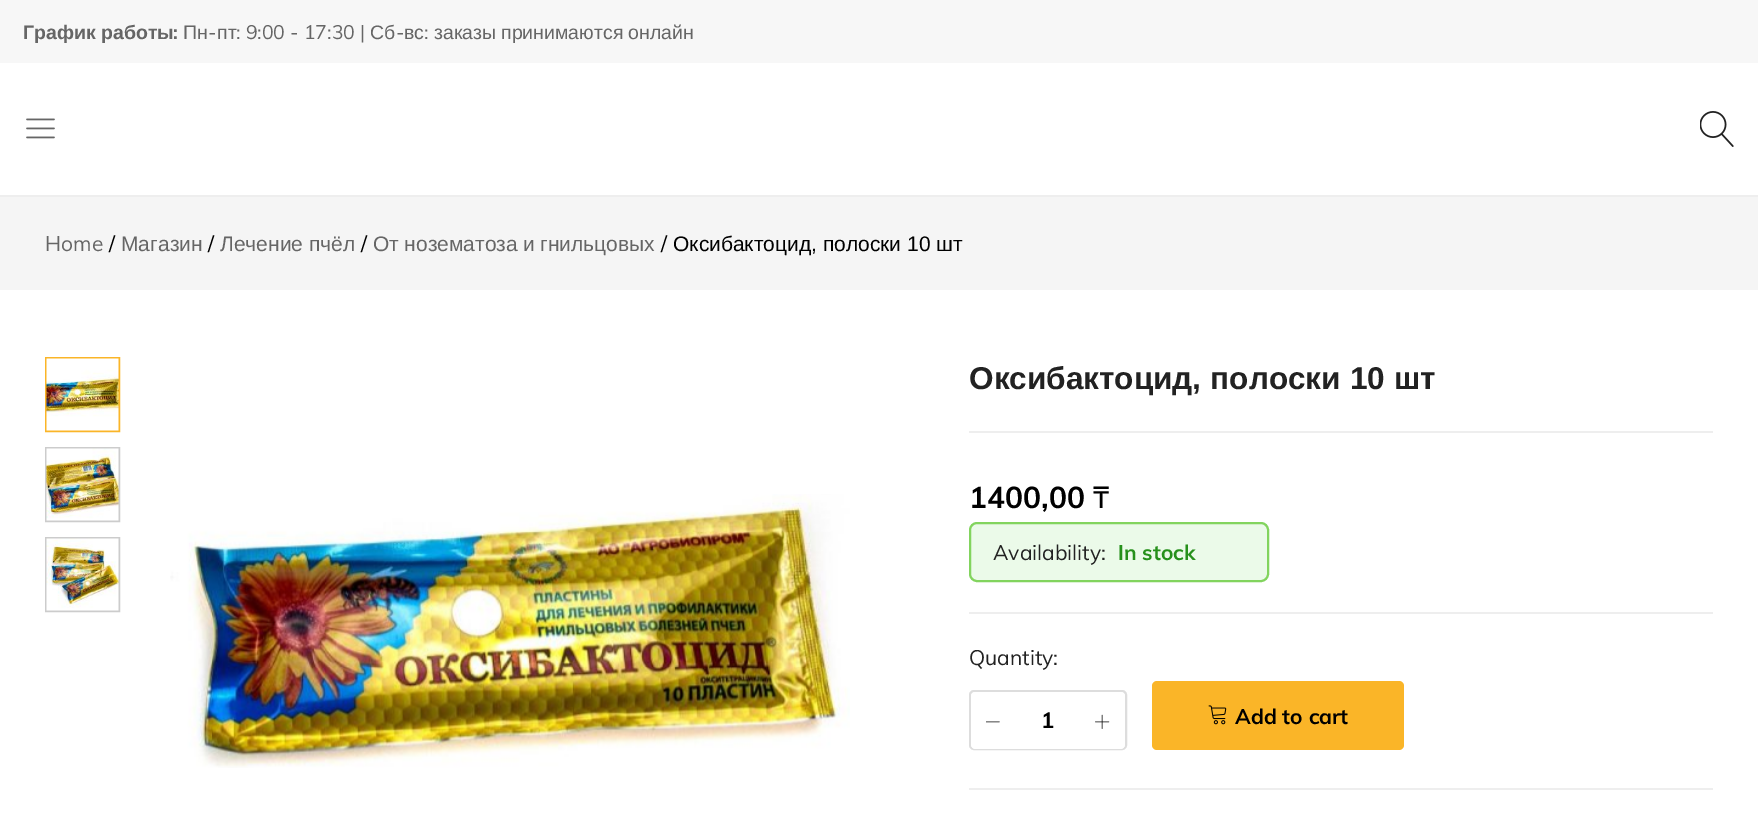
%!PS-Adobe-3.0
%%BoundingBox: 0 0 1758 815
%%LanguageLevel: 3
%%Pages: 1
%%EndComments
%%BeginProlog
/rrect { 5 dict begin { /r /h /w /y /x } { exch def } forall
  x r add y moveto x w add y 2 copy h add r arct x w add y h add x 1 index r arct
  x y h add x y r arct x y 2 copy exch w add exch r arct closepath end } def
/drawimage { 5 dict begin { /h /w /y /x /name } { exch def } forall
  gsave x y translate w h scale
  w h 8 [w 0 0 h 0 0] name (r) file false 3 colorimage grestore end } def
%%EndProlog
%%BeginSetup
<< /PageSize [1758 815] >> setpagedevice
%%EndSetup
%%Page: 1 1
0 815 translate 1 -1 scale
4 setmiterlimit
1 setgray
0 0 1758 815 rectfill
0.969 setgray
0 0 1758 63 rectfill
0.933 setgray
0 195 1758 2 rectfill
(images/1.raw) 26 118 29 21 drawimage
(images/2.raw) 1700 111 34 36 drawimage
0.961 setgray
0 197 1758 93 rectfill
0.98 0.71 0.157 setrgbcolor
2 setlinewidth
46 358 73 73 rectstroke
(images/3.raw) 46 358 73 73 drawimage
0.8 setgray
46 448 73 73 rectstroke
(images/4.raw) 46 448 73 73 drawimage
46 538 73 73 rectstroke
(images/5.raw) 46 538 73 73 drawimage
(images/6.raw) 170 494 680 274 drawimage
0.933 setgray
969 431 744 2 rectfill
0.922 0.98 0.914 setrgbcolor
970 523 298 58 7 rrect gsave fill grestore
0.51 0.831 0.369 setrgbcolor
stroke
0.933 setgray
969 612 744 2 rectfill
969 788 744 2 rectfill
0.867 setgray
970 691 156 58 4 rrect stroke
1 setgray
971 692 154 57 5 rrect fill
newpath 976 692 moveto 1016 692 lineto 1016 749 lineto 976 749 lineto 973 749 971 747 971 744 curveto 971 697 lineto 971 694 973 692 976 692 curveto closepath fill
(images/7.raw) 986 721 14 2 drawimage
newpath 1080 692 moveto 1120 692 lineto 1123 692 1125 694 1125 697 curveto 1125 744 lineto 1125 747 1123 749 1120 749 curveto 1080 749 lineto closepath fill
(images/8.raw) 1095 714 15 15 drawimage
0.98 0.71 0.157 setrgbcolor
1152 681 252 69 5 rrect fill
(images/9.raw) 1208 705 19 20 drawimage
/LiberationSans-Bold [19.5 0 0 -19.5 0 0] selectfont
0.4 setgray
23 39 moveto (График работы) show
/Muli-Bold [19.5 0 0 -19.5 0 0] selectfont
173 39 moveto (:) show
/LiberationSans-Regular [19.5 0 0 -19.5 0 0] selectfont
183 39 moveto (Пн) show
/Muli-Regular [19.5 0 0 -19.5 0 0] selectfont
208 39 moveto (-) show
/LiberationSans-Regular [19.5 0 0 -19.5 0 0] selectfont
217 39 moveto (пт) show
/Muli-Regular [19.5 0 0 -19.5 0 0] selectfont
236 39 moveto (: 9:00 - 17:30 |) show
/LiberationSans-Regular [19.5 0 0 -19.5 0 0] selectfont
370 39 moveto (Сб) show
/Muli-Regular [19.5 0 0 -19.5 0 0] selectfont
396 39 moveto (-) show
/LiberationSans-Regular [19.5 0 0 -19.5 0 0] selectfont
404 39 moveto (вс) show
/Muli-Regular [19.5 0 0 -19.5 0 0] selectfont
424 39 moveto (:) show
/LiberationSans-Regular [19.5 0 0 -19.5 0 0] selectfont
434 39 moveto (заказы) show
501 39 moveto (принимаются) show
628 39 moveto (онлайн) show
/Muli-Regular [21 0 0 -21 0 0] selectfont
45 251 moveto (Home) show
0 setgray
109 251 moveto (/) show
/LiberationSans-Regular [21 0 0 -21 0 0] selectfont
0.4 setgray
121 251 moveto (Магазин) show
/Muli-Regular [21 0 0 -21 0 0] selectfont
0 setgray
208 251 moveto (/) show
/LiberationSans-Regular [21 0 0 -21 0 0] selectfont
0.4 setgray
220 251 moveto (Лечение пчёл) show
/Muli-Regular [21 0 0 -21 0 0] selectfont
0 setgray
361 251 moveto (/) show
/LiberationSans-Regular [21 0 0 -21 0 0] selectfont
0.4 setgray
373 251 moveto -0.5 0 32 (От нозематоза и гнильцовых) widthshow
/Muli-Regular [21 0 0 -21 0 0] selectfont
0 setgray
661 251 moveto (/) show
/LiberationSans-Regular [21 0 0 -21 0 0] selectfont
673 251 moveto (Оксибактоцид, полоски 10 шт) show
/LiberationSans-Bold [31.5 0 0 -31.5 0 0] selectfont
0.133 setgray
969 389 moveto 0.5 0 32 (Оксибактоцид, полоски 10 шт) widthshow
/Muli-Bold [30 0 0 -30 0 0] selectfont
0 setgray
969 508 moveto (1400,00) show
/NotoSans-Regular [30 0 0 -30 0 0] selectfont
1093 508 moveto (₸) show
/Muli-Regular [21 0 0 -21 0 0] selectfont
0.133 setgray
993 560 moveto (Availability:) show
/Muli-Bold [21 0 0 -21 0 0] selectfont
0.149 0.565 0.106 setrgbcolor
1118 560 moveto (In stock) show
/Muli-Regular [21 0 0 -21 0 0] selectfont
0.133 setgray
969 665 moveto (Quantity:) show
/Muli-Bold [22 0 0 -22 0 0] selectfont
0 setgray
1041 728 moveto (1) show
/Muli-Bold [21 0 0 -21 0 0] selectfont
1235 724 moveto (Add to cart) show
showpage
%%EOF
